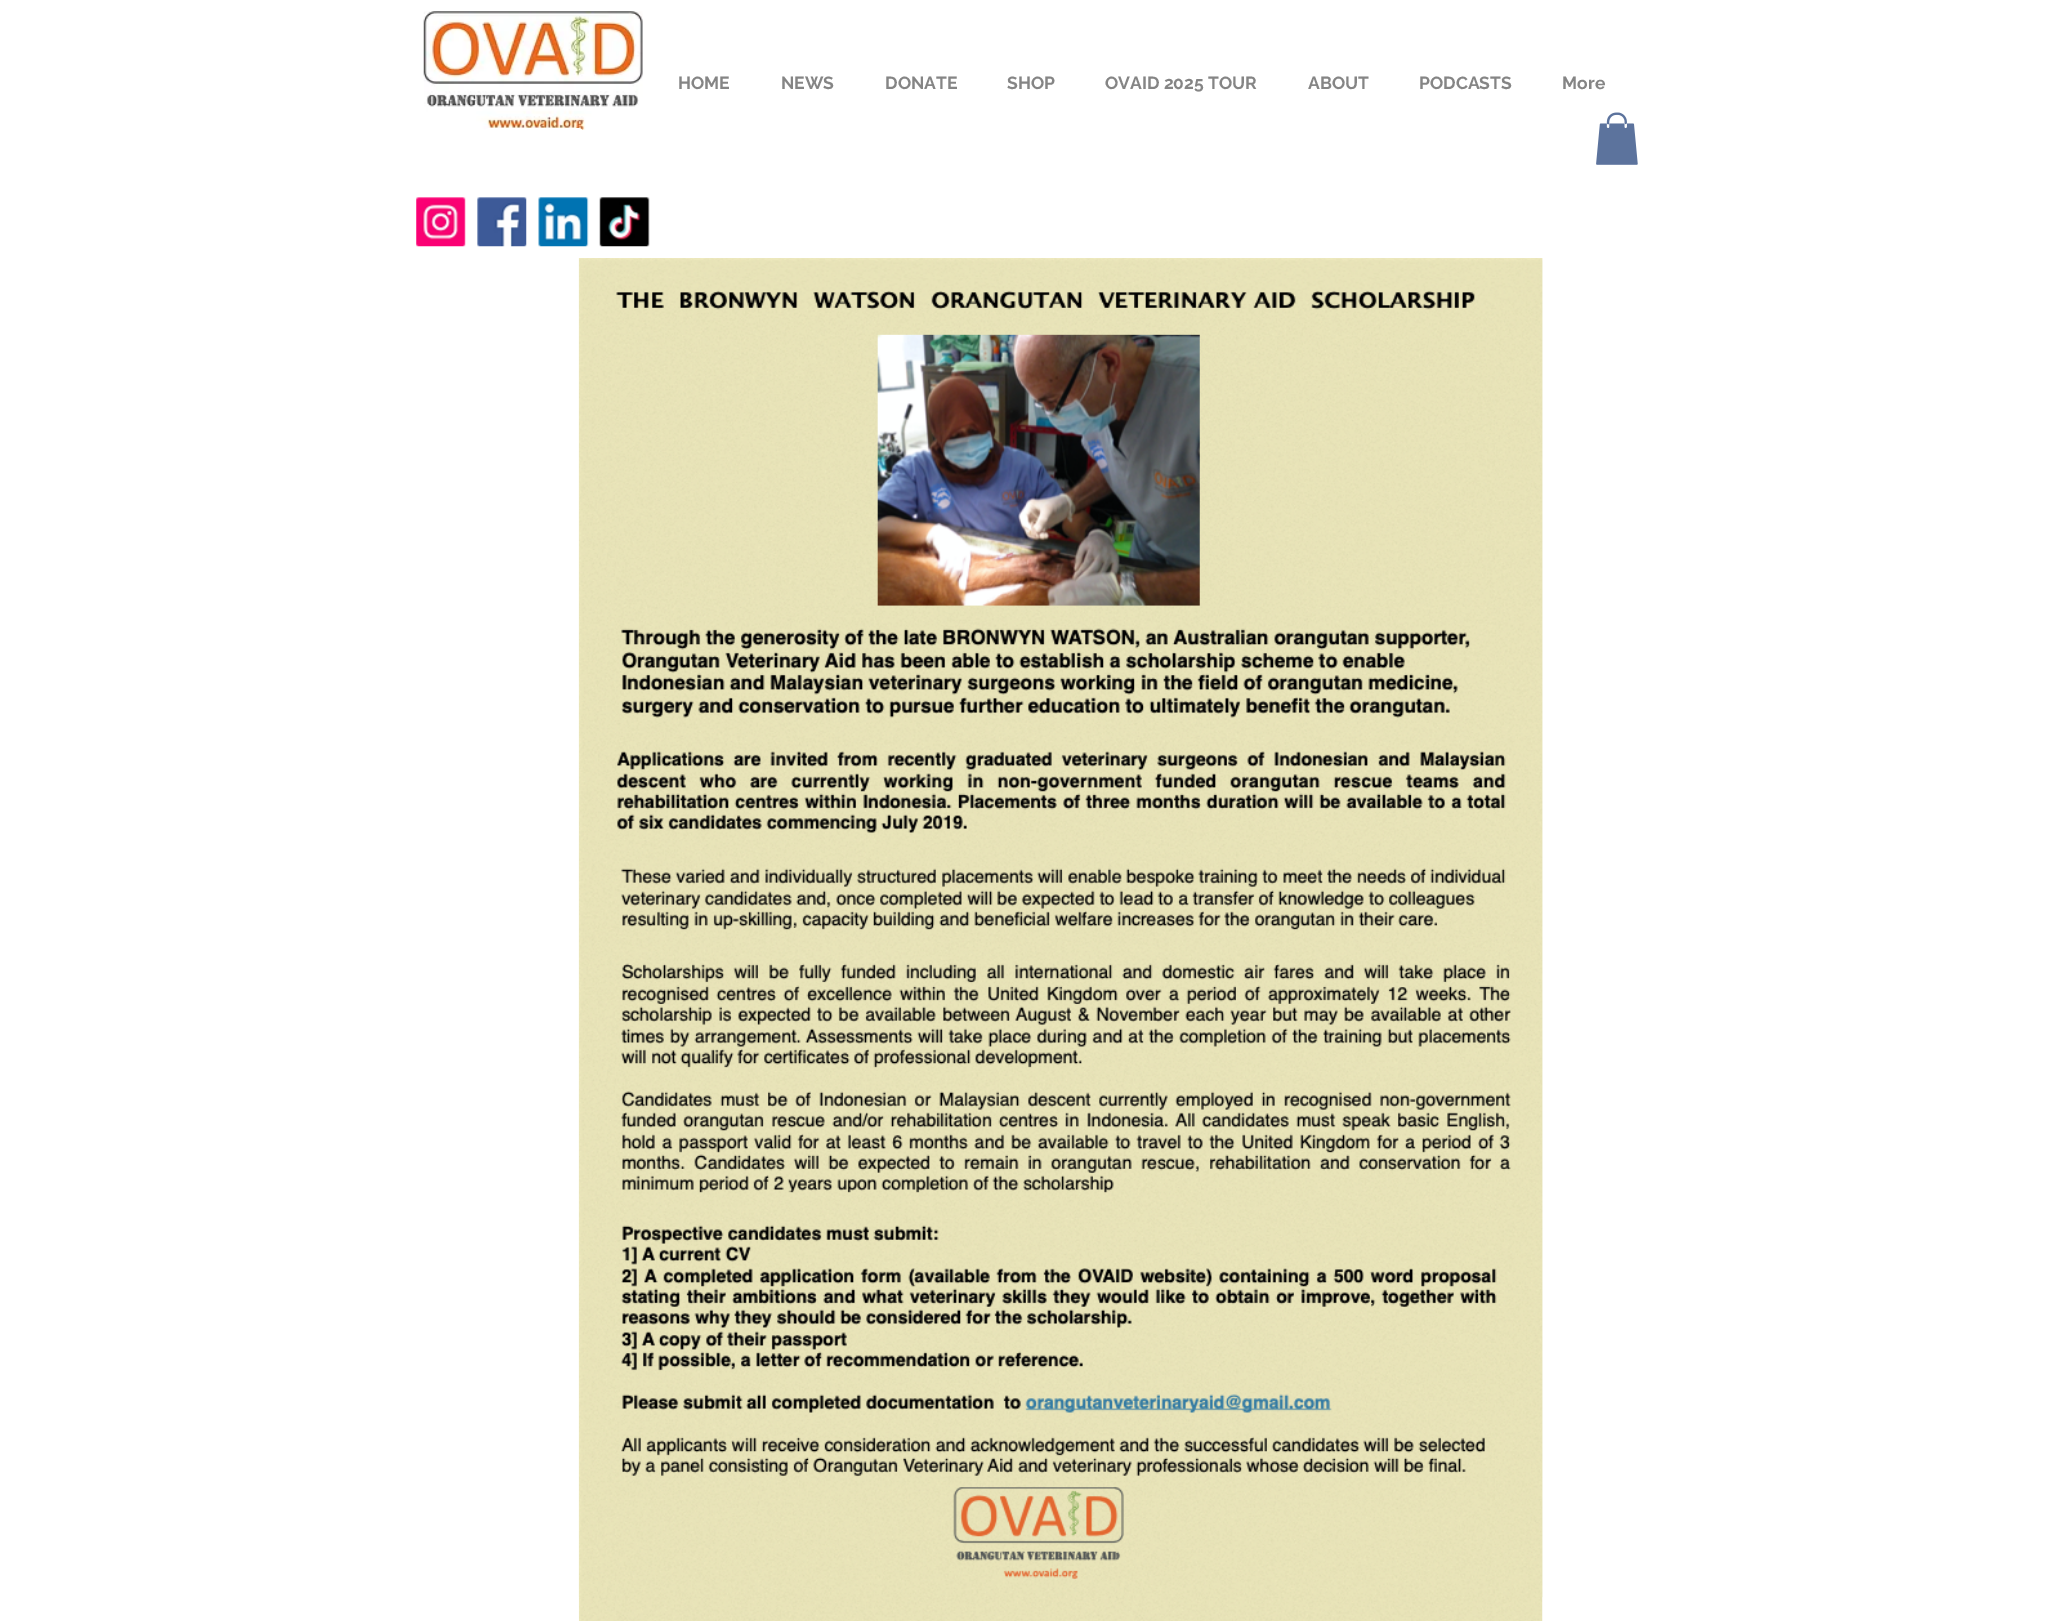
%!PS-Adobe-3.0
%%BoundingBox: 0 0 2052 1621
%%LanguageLevel: 3
%%Pages: 1
%%EndComments
%%BeginProlog
/rrect { 5 dict begin { /r /h /w /y /x } { exch def } forall
  x r add y moveto x w add y 2 copy h add r arct x w add y h add x 1 index r arct
  x y h add x y r arct x y 2 copy exch w add exch r arct closepath end } def
/drawimage { 5 dict begin { /h /w /y /x /name } { exch def } forall
  gsave x y translate w h scale
  w h 8 [w 0 0 h 0 0] name (r) file false 3 colorimage grestore end } def
%%EndProlog
%%BeginSetup
<< /PageSize [2052 1621] >> setpagedevice
%%EndSetup
%%Page: 1 1
0 1621 translate 1 -1 scale
4 setmiterlimit
1 setgray
0 0 2052 1621 rectfill
(images/1.raw) 423 11 220 119 drawimage
483 128 101 22 6 rrect fill
(images/2.raw) 1596 112 42 53 drawimage
(images/3.raw) 416 197 50 50 drawimage
(images/4.raw) 477 197 50 50 drawimage
(images/5.raw) 538 197 51 50 drawimage
(images/6.raw) 599 197 51 50 drawimage
(images/7.raw) 578 258 965 1340 drawimage
(images/8.raw) 578 258 965 1363 drawimage
/Raleway-Bold [17.5 0 0 -17.5 0 0] selectfont
0.522 setgray
678 89 moveto (HOME) show
781 89 moveto (NEWS) show
885 89 moveto (DONATE) show
1007 89 moveto (SHOP) show
1105 89 moveto (OVAID 2025 TOUR) show
1308 89 moveto (ABOUT) show
1419 89 moveto (PODCASTS) show
1562 89 moveto (More) show
showpage
%%EOF
